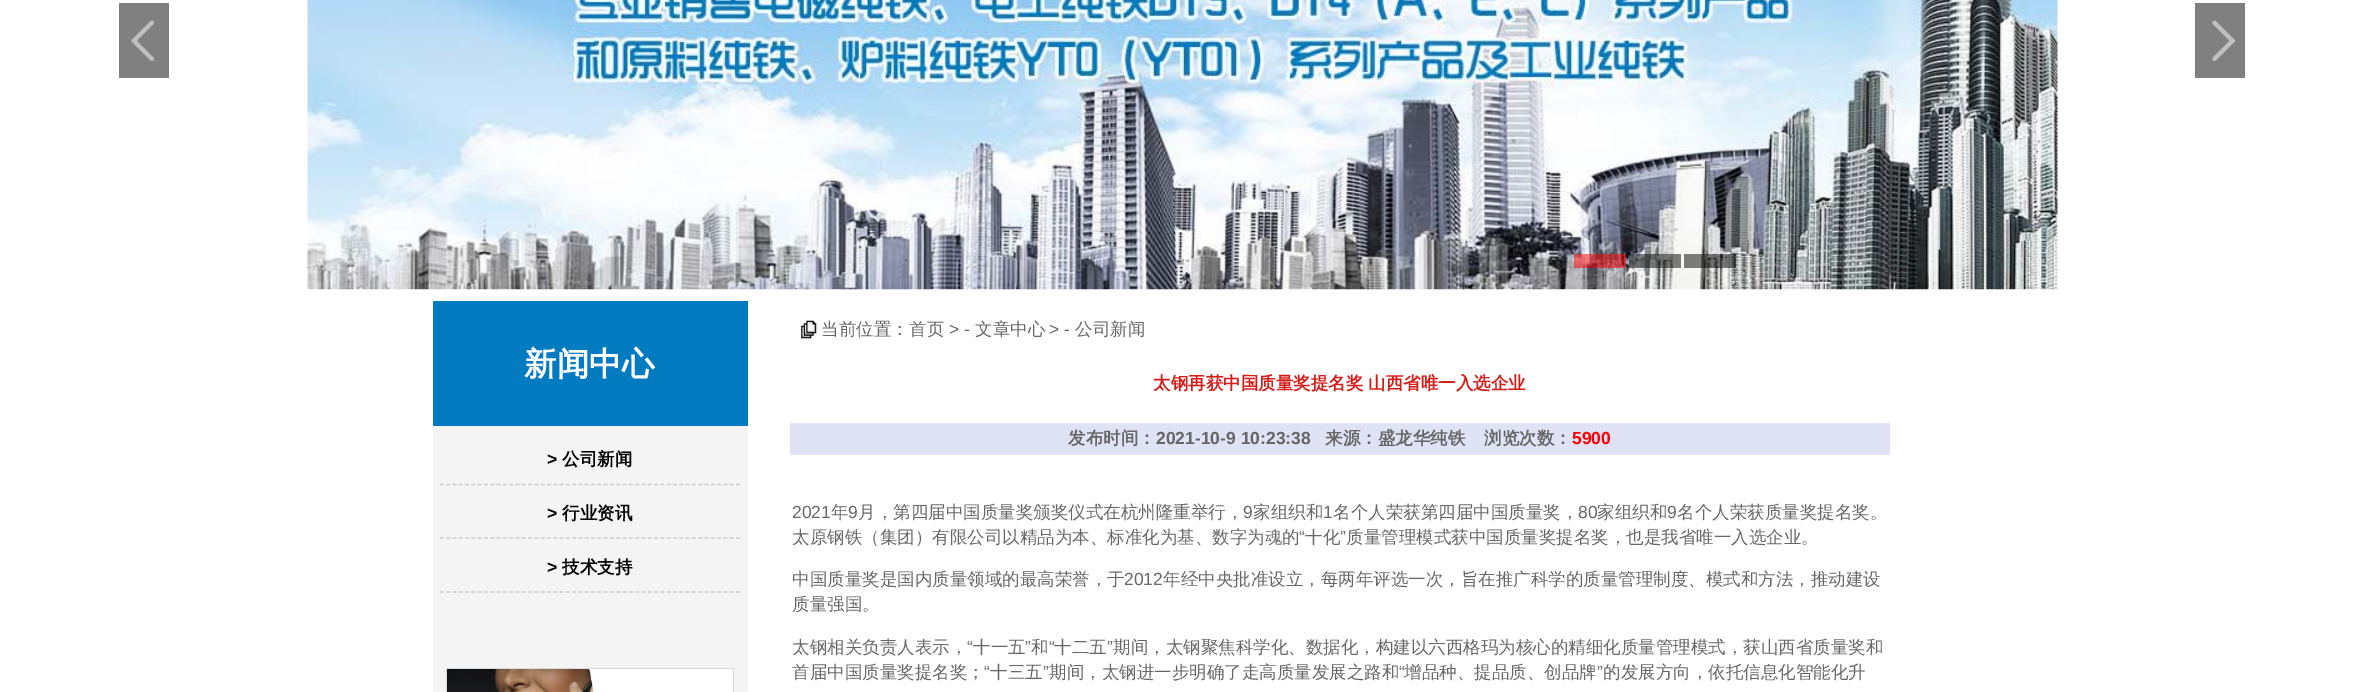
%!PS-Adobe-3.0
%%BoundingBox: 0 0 2363 692
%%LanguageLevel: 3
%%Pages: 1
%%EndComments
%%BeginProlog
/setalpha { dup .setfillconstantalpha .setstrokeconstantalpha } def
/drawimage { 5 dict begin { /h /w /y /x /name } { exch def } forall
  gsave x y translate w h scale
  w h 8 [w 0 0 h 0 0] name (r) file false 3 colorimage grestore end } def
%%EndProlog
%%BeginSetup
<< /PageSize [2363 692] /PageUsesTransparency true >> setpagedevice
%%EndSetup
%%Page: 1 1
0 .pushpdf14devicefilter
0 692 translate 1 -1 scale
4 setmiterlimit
1 setgray
0 0 2363 692 rectfill
0.502 setgray
119 3 50 75 rectfill
(images/1.raw) 131 20 23 41 drawimage
(images/2.raw) 307 0 1751 290 drawimage
2195 3 50 75 rectfill
(images/3.raw) 2212 20 24 41 drawimage
0.5 setalpha
1 0 0 setrgbcolor
1574 254 52 14 rectfill
0 setgray
1629 254 52 14 rectfill
1684 254 52 14 rectfill
1 setalpha
0.957 setgray
433 426 315 266 rectfill
0.012 0.482 0.757 setrgbcolor
433 301 315 125 rectfill
0.8 setgray
1.2 setlinewidth
[3.75 2.55] 0 setdash
newpath 440 484.5 moveto 740 484.5 lineto stroke
newpath 440 538 moveto 740 538 lineto stroke
newpath 440 592 moveto 740 592 lineto stroke
(images/4.raw) 446 668 288 24 drawimage
(images/5.raw) 801 320 16 19 drawimage
0.878 0.89 0.965 setrgbcolor
790 423 1100 32 rectfill
/WenQuanYiZenHei-Bold [32.5 0 0 -32.5 0 0] selectfont
1 setgray
524 375 moveto (新闻中心) show
/LiberationSans-Bold [17.5 0 0 -17.5 0 0] selectfont
0 setgray
547 465 moveto (>) show
/WenQuanYiZenHei-Bold [17.5 0 0 -17.5 0 0] selectfont
562 465 moveto (公司新闻) show
/LiberationSans-Bold [17.5 0 0 -17.5 0 0] selectfont
547 519 moveto (>) show
/WenQuanYiZenHei-Bold [17.5 0 0 -17.5 0 0] selectfont
562 519 moveto (行业资讯) show
/LiberationSans-Bold [17.5 0 0 -17.5 0 0] selectfont
547 573 moveto (>) show
/WenQuanYiZenHei-Bold [17.5 0 0 -17.5 0 0] selectfont
562 573 moveto (技术支持) show
/WenQuanYiZenHei-Medium [17.5 0 0 -17.5 0 0] selectfont
0.4 setgray
821 335 moveto (当前位置：) show
909 335 moveto (首页) show
/LiberationSans-Regular [17.5 0 0 -17.5 0 0] selectfont
949 335 moveto (> -) show
/WenQuanYiZenHei-Medium [17.5 0 0 -17.5 0 0] selectfont
975 335 moveto (文章中心) show
/LiberationSans-Regular [17.5 0 0 -17.5 0 0] selectfont
1049 335 moveto (> -) show
/WenQuanYiZenHei-Medium [17.5 0 0 -17.5 0 0] selectfont
1075 335 moveto (公司新闻) show
/WenQuanYiZenHei-Bold [17.5 0 0 -17.5 0 0] selectfont
0.831 0.114 0.098 setrgbcolor
1153 389 moveto (太钢再获中国质量奖提名奖 山西省唯一入选企业) show
0.4 setgray
1068 444 moveto (发布时间：) show
/LiberationSans-Bold [17.5 0 0 -17.5 0 0] selectfont
1156 444 moveto (2021-10-9 10:23:38) show
/WenQuanYiZenHei-Bold [17.5 0 0 -17.5 0 0] selectfont
1325 444 moveto (来源：盛龙华纯铁) show
1484 444 moveto (浏览次数：) show
/LiberationSans-Bold [17.5 0 0 -17.5 0 0] selectfont
1 0 0 setrgbcolor
1572 444 moveto (5900) show
/LiberationSans-Regular [17.5 0 0 -17.5 0 0] selectfont
0.4 setgray
792 518 moveto (2021) show
/WenQuanYiZenHei-Medium [17.5 0 0 -17.5 0 0] selectfont
831 518 moveto (年) show
/LiberationSans-Regular [17.5 0 0 -17.5 0 0] selectfont
848 518 moveto (9) show
/WenQuanYiZenHei-Medium [17.5 0 0 -17.5 0 0] selectfont
858 518 moveto (月，第四届中国质量奖颁奖仪式在杭州隆重举行，) show
/LiberationSans-Regular [17.5 0 0 -17.5 0 0] selectfont
1243 518 moveto (9) show
/WenQuanYiZenHei-Medium [17.5 0 0 -17.5 0 0] selectfont
1253 518 moveto (家组织和) show
/LiberationSans-Regular [17.5 0 0 -17.5 0 0] selectfont
1323 518 moveto (1) show
/WenQuanYiZenHei-Medium [17.5 0 0 -17.5 0 0] selectfont
1333 518 moveto (名个人荣获第四届中国质量奖，) show
/LiberationSans-Regular [17.5 0 0 -17.5 0 0] selectfont
1578 518 moveto (80) show
/WenQuanYiZenHei-Medium [17.5 0 0 -17.5 0 0] selectfont
1597 518 moveto (家组织和) show
/LiberationSans-Regular [17.5 0 0 -17.5 0 0] selectfont
1667 518 moveto (9) show
/WenQuanYiZenHei-Medium [17.5 0 0 -17.5 0 0] selectfont
1677 518 moveto (名个人荣获质量奖提名奖。) show
792 543 moveto (太原钢铁（集团）有限公司以精品为本、标准化为基、数字为魂的) show
/LiberationSans-Regular [17.5 0 0 -17.5 0 0] selectfont
1299 543 moveto (“) show
/WenQuanYiZenHei-Medium [17.5 0 0 -17.5 0 0] selectfont
1305 543 moveto (十化) show
/LiberationSans-Regular [17.5 0 0 -17.5 0 0] selectfont
1340 543 moveto (”) show
/WenQuanYiZenHei-Medium [17.5 0 0 -17.5 0 0] selectfont
1346 543 moveto (质量管理模式获中国质量奖提名奖，也是我省唯一入选企业。) show
792 585 moveto (中国质量奖是国内质量领域的最高荣誉，于) show
/LiberationSans-Regular [17.5 0 0 -17.5 0 0] selectfont
1124 585 moveto (2012) show
/WenQuanYiZenHei-Medium [17.5 0 0 -17.5 0 0] selectfont
1163 585 moveto (年经中央批准设立，每两年评选一次，旨在推广科学的质量管理制度、模式和方法，推动建设) show
792 610 moveto (质量强国。) show
792 653 moveto (太钢相关负责人表示，) show
/LiberationSans-Regular [17.5 0 0 -17.5 0 0] selectfont
967 653 moveto (“) show
/WenQuanYiZenHei-Medium [17.5 0 0 -17.5 0 0] selectfont
973 653 moveto (十一五) show
/LiberationSans-Regular [17.5 0 0 -17.5 0 0] selectfont
1025 653 moveto (”) show
/WenQuanYiZenHei-Medium [17.5 0 0 -17.5 0 0] selectfont
1031 653 moveto (和) show
/LiberationSans-Regular [17.5 0 0 -17.5 0 0] selectfont
1049 653 moveto (“) show
/WenQuanYiZenHei-Medium [17.5 0 0 -17.5 0 0] selectfont
1054 653 moveto (十二五) show
/LiberationSans-Regular [17.5 0 0 -17.5 0 0] selectfont
1107 653 moveto (”) show
/WenQuanYiZenHei-Medium [17.5 0 0 -17.5 0 0] selectfont
1113 653 moveto (期间，太钢聚焦科学化、数据化，构建以六西格玛为核心的精细化质量管理模式，获山西省质量奖和) show
792 678 moveto (首届中国质量奖提名奖；) show
/LiberationSans-Regular [17.5 0 0 -17.5 0 0] selectfont
984 678 moveto (“) show
/WenQuanYiZenHei-Medium [17.5 0 0 -17.5 0 0] selectfont
990 678 moveto (十三五) show
/LiberationSans-Regular [17.5 0 0 -17.5 0 0] selectfont
1043 678 moveto (”) show
/WenQuanYiZenHei-Medium [17.5 0 0 -17.5 0 0] selectfont
1049 678 moveto (期间，太钢进一步明确了走高质量发展之路和) show
/LiberationSans-Regular [17.5 0 0 -17.5 0 0] selectfont
1399 678 moveto (“) show
/WenQuanYiZenHei-Medium [17.5 0 0 -17.5 0 0] selectfont
1404 678 moveto (增品种、提品质、创品牌) show
/LiberationSans-Regular [17.5 0 0 -17.5 0 0] selectfont
1597 678 moveto (”) show
/WenQuanYiZenHei-Medium [17.5 0 0 -17.5 0 0] selectfont
1603 678 moveto (的发展方向，依托信息化智能化升) show
.poppdf14devicefilter showpage
%%EOF
